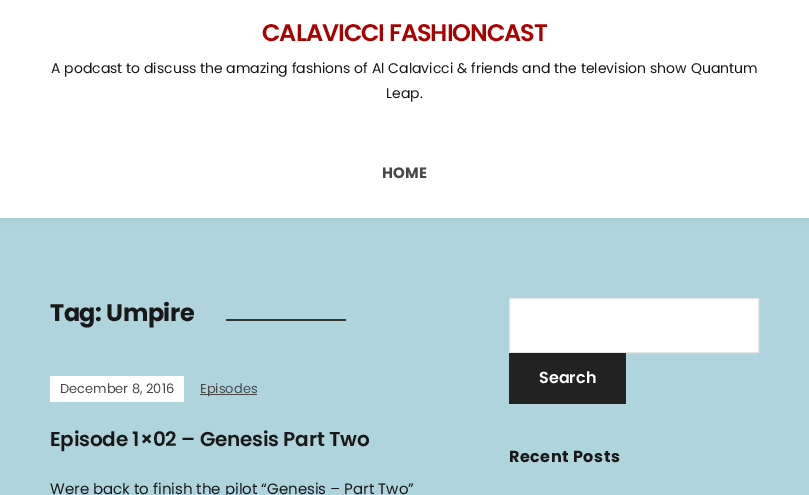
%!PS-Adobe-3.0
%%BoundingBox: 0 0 809 495
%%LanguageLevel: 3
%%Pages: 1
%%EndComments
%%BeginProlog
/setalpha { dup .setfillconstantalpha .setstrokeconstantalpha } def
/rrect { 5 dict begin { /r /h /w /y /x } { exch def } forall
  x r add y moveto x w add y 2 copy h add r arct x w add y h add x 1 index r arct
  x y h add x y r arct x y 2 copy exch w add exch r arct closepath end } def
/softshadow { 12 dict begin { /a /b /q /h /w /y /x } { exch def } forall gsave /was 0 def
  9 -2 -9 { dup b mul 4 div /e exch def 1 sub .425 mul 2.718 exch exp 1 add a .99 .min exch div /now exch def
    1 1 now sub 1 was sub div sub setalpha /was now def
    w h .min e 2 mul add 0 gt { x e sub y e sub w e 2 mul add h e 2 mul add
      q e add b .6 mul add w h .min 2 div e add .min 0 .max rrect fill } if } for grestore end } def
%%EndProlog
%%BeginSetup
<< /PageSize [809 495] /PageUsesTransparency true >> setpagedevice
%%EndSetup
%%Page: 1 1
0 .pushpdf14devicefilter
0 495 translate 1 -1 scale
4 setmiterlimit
0.686 0.831 0.867 setrgbcolor
0 0 809 495 rectfill
0 setgray
0 0 809 218 0 4 0.07 softshadow
1 setgray
0 0 809 218 rectfill
0.2 setgray
226 319 120 2 rectfill
1 setgray
50 376 134 26 rectfill
0.282 setgray
200 394 57 1 rectfill
1 setgray
newpath 509.5 298.5 moveto 758.5 298.5 lineto 758.5 352.5 lineto 509.5 352.5 lineto closepath gsave fill grestore
0.902 setgray
stroke
0.133 setgray
509 353 117 51 rectfill
/Poppins-SemiBold [24 0 0 -24 0 0] selectfont
0.667 0 0 setrgbcolor
262 41 moveto -1 0 (CALAVICCI FASHIONCAST) ashow
/Poppins-Regular [14 0 0 -14 0 0] selectfont
0.094 setgray
51 73 moveto (A podcast to discuss the amazing fashions of Al Calavicci & friends and the television show Quantum) show
386 98 moveto (Leap.) show
/Poppins-Bold [15 0 0 -15 0 0] selectfont
0.282 setgray
382 178 moveto (HOME) show
/Poppins-Bold [24 0 0 -24 0 0] selectfont
0.094 setgray
50 321 moveto -0.5 0 (Tag: Umpire) ashow
/Poppins-Regular [13 0 0 -13 0 0] selectfont
0.282 setgray
60 393 moveto (December 8, 2016) show
200 393 moveto (Episodes) show
/Poppins-SemiBold [20 0 0 -20 0 0] selectfont
0.094 setgray
50 446 moveto -0.2 0 (Episode 1×02 – Genesis Part Two) ashow
/Poppins-Regular [15 0 0 -15 0 0] selectfont
50 494 moveto (Were back to finish the pilot “Genesis – Part Two”) show
/Poppins-SemiBold [16 0 0 -16 0 0] selectfont
1 setgray
539 383 moveto (Search) show
/Poppins-Bold [16 0 0 -16 0 0] selectfont
0.094 setgray
509 462 moveto 0.5 0 (Recent Posts) ashow
.poppdf14devicefilter showpage
%%EOF
